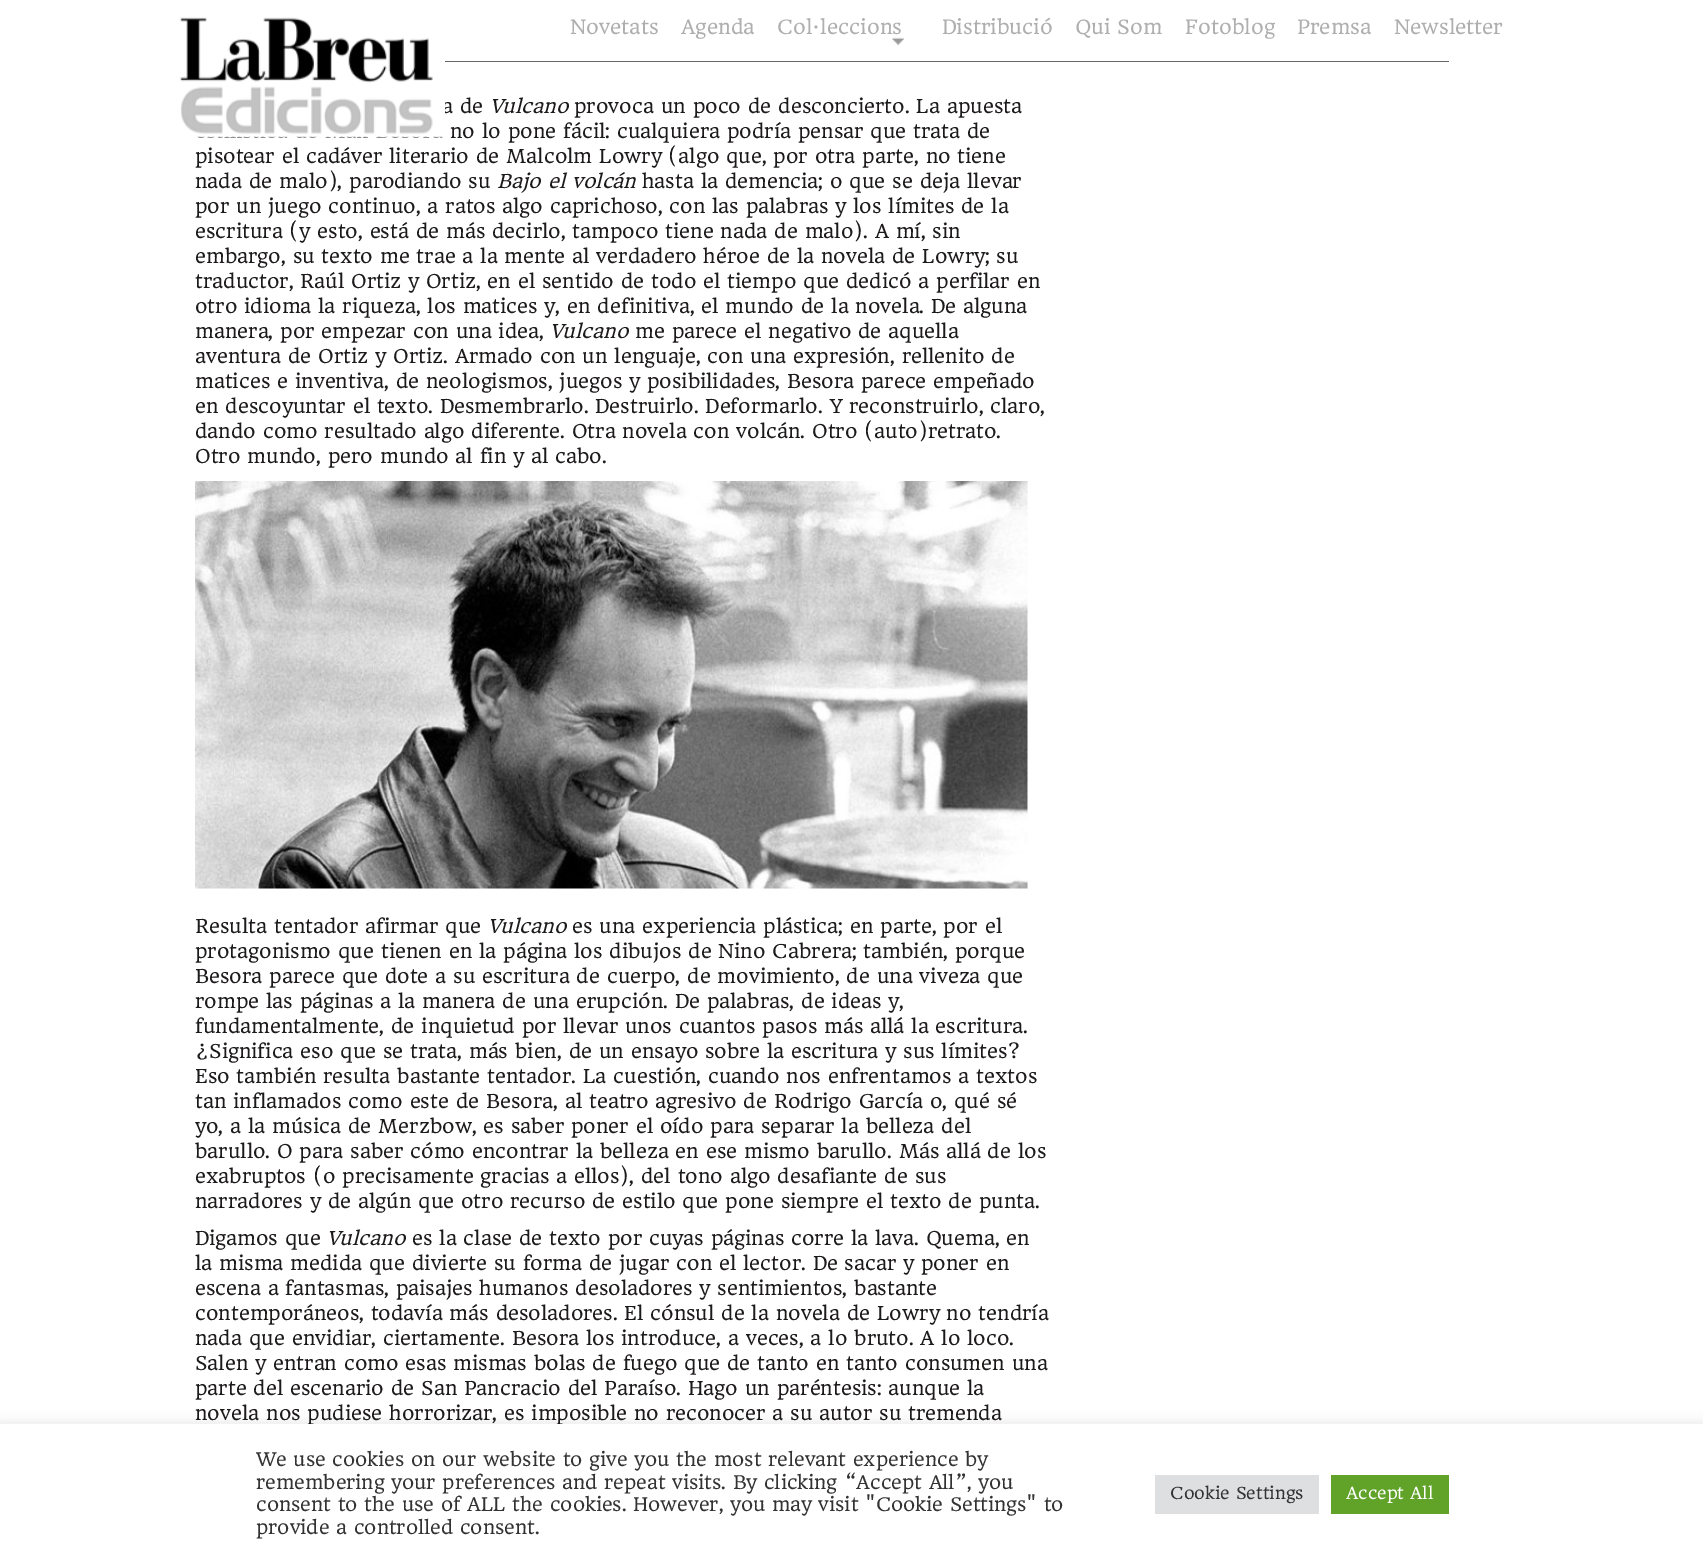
%!PS-Adobe-3.0
%%BoundingBox: 0 0 1703 1563
%%LanguageLevel: 3
%%Pages: 1
%%EndComments
%%BeginProlog
/setalpha { dup .setfillconstantalpha .setstrokeconstantalpha } def
/rrect { 5 dict begin { /r /h /w /y /x } { exch def } forall
  x r add y moveto x w add y 2 copy h add r arct x w add y h add x 1 index r arct
  x y h add x y r arct x y 2 copy exch w add exch r arct closepath end } def
/softshadow { 12 dict begin { /a /b /q /h /w /y /x } { exch def } forall gsave /was 0 def
  9 -2 -9 { dup b mul 4 div /e exch def 1 sub .425 mul 2.718 exch exp 1 add a .99 .min exch div /now exch def
    1 1 now sub 1 was sub div sub setalpha /was now def
    w h .min e 2 mul add 0 gt { x e sub y e sub w e 2 mul add h e 2 mul add
      q e add b .6 mul add w h .min 2 div e add .min 0 .max rrect fill } if } for grestore end } def
/drawimage { 5 dict begin { /h /w /y /x /name } { exch def } forall
  gsave x y translate w h scale
  w h 8 [w 0 0 h 0 0] name (r) file false 3 colorimage grestore end } def
%%EndProlog
%%BeginSetup
<< /PageSize [1703 1563] /PageUsesTransparency true >> setpagedevice
%%EndSetup
%%Page: 1 1
0 .pushpdf14devicefilter
0 1563 translate 1 -1 scale
4 setmiterlimit
1 setgray
0 0 1703 1563 rectfill
0.4 setgray
445 61 1004 1 rectfill
(images/2.raw) 892 37 12 9 drawimage
(images/3.raw) 195 481 833 408 drawimage
0.675 0.671 0.671 setrgbcolor
0 1423 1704 140 0 6 0.3 softshadow
/HeadlandOne-Regular [19.25 0 0 -19.25 0 0] selectfont
0.686 setgray
570 34 moveto (Novetats) show
681 34 moveto (Agenda) show
777 34 moveto (Col·leccions) show
942 34 moveto (Distribució) show
1075 34 moveto (Qui Som) show
1185 34 moveto (Fotoblog) show
1297 34 moveto (Premsa) show
1394 34 moveto (Newsletter) show
/HeadlandOne-Regular [18.75 0 0 -18.75 0 0] selectfont
0.114 0.102 0.102 setrgbcolor
442 113 moveto (a de) show
(images/1.raw) 170 17 275 121 drawimage
/HeadlandOne-Italic [18.75 0 0 -18.75 0 0] selectfont
490 113 moveto (Vulcano) show
/HeadlandOne-Regular [18.75 0 0 -18.75 0 0] selectfont
574 113 moveto (provoca un poco de desconcierto. La apuesta) show
450 138 moveto (no lo pone fácil: cualquiera podría pensar que trata de) show
195 163 moveto (pisotear el cadáver literario de Malcolm Lowry \(algo que, por otra parte, no tiene) show
195 188 moveto (nada de malo\), parodiando su) show
/HeadlandOne-Italic [18.75 0 0 -18.75 0 0] selectfont
497 188 moveto (Bajo el volcán) show
/HeadlandOne-Regular [18.75 0 0 -18.75 0 0] selectfont
642 188 moveto (hasta la demencia; o que se deja llevar) show
195 213 moveto (por un juego continuo, a ratos algo caprichoso, con las palabras y los límites de la) show
195 238 moveto (escritura \(y esto, está de más decirlo, tampoco tiene nada de malo\). A mí, sin) show
195 263 moveto (embargo, su texto me trae a la mente al verdadero héroe de la novela de Lowry; su) show
195 288 moveto (traductor, Raúl Ortiz y Ortiz, en el sentido de todo el tiempo que dedicó a perfilar en) show
195 313 moveto (otro idioma la riqueza, los matices y, en definitiva, el mundo de la novela. De alguna) show
195 338 moveto (manera, por empezar con una idea,) show
/HeadlandOne-Italic [18.75 0 0 -18.75 0 0] selectfont
550 338 moveto (Vulcano) show
/HeadlandOne-Regular [18.75 0 0 -18.75 0 0] selectfont
635 338 moveto (me parece el negativo de aquella) show
195 363 moveto (aventura de Ortiz y Ortiz. Armado con un lenguaje, con una expresión, rellenito de) show
195 388 moveto (matices e inventiva, de neologismos, juegos y posibilidades, Besora parece empeñado) show
195 413 moveto (en descoyuntar el texto. Desmembrarlo. Destruirlo. Deformarlo. Y reconstruirlo, claro,) show
195 438 moveto (dando como resultado algo diferente. Otra novela con volcán. Otro \(auto\)retrato.) show
195 463 moveto (Otro mundo, pero mundo al fin y al cabo.) show
195 933 moveto (Resulta tentador afirmar que) show
/HeadlandOne-Italic [18.75 0 0 -18.75 0 0] selectfont
488 933 moveto (Vulcano) show
/HeadlandOne-Regular [18.75 0 0 -18.75 0 0] selectfont
572 933 moveto (es una experiencia plástica; en parte, por el) show
195 958 moveto (protagonismo que tienen en la página los dibujos de Nino Cabrera; también, porque) show
195 983 moveto (Besora parece que dote a su escritura de cuerpo, de movimiento, de una viveza que) show
195 1008 moveto (rompe las páginas a la manera de una erupción. De palabras, de ideas y,) show
195 1033 moveto (fundamentalmente, de inquietud por llevar unos cuantos pasos más allá la escritura.) show
195 1058 moveto (¿Significa eso que se trata, más bien, de un ensayo sobre la escritura y sus límites?) show
195 1083 moveto (Eso también resulta bastante tentador. La cuestión, cuando nos enfrentamos a textos) show
195 1108 moveto (tan inflamados como este de Besora, al teatro agresivo de Rodrigo García o, qué sé) show
195 1133 moveto (yo, a la música de Merzbow, es saber poner el oído para separar la belleza del) show
195 1158 moveto (barullo. O para saber cómo encontrar la belleza en ese mismo barullo. Más allá de los) show
195 1183 moveto (exabruptos \(o precisamente gracias a ellos\), del tono algo desafiante de sus) show
195 1208 moveto (narradores y de algún que otro recurso de estilo que pone siempre el texto de punta.) show
195 1245 moveto (Digamos que) show
/HeadlandOne-Italic [18.75 0 0 -18.75 0 0] selectfont
327 1245 moveto (Vulcano) show
/HeadlandOne-Regular [18.75 0 0 -18.75 0 0] selectfont
412 1245 moveto (es la clase de texto por cuyas páginas corre la lava. Quema, en) show
195 1270 moveto (la misma medida que divierte su forma de jugar con el lector. De sacar y poner en) show
195 1295 moveto (escena a fantasmas, paisajes humanos desoladores y sentimientos, bastante) show
195 1320 moveto (contemporáneos, todavía más desoladores. El cónsul de la novela de Lowry no tendría) show
195 1345 moveto (nada que envidiar, ciertamente. Besora los introduce, a veces, a lo bruto. A lo loco.) show
195 1370 moveto (Salen y entran como esas mismas bolas de fuego que de tanto en tanto consumen una) show
195 1395 moveto (parte del escenario de San Pancracio del Paraíso. Hago un paréntesis: aunque la) show
195 1420 moveto (novela nos pudiese horrorizar, es imposible no reconocer a su autor su tremenda) show
1 setgray
0 1424 1703 139 rectfill
/HeadlandOne-Regular [18.35 0 0 -18.35 0 0] selectfont
0.2 setgray
256 1466 moveto (We use cookies on our website to give you the most relevant experience by) show
256 1489 moveto (remembering your preferences and repeat visits. By clicking “Accept All”, you) show
256 1511 moveto (consent to the use of ALL the cookies. However, you may visit "Cookie Settings" to) show
256 1534 moveto (provide a controlled consent.) show
0.871 0.875 0.878 setrgbcolor
1155 1475 164 39 rectfill
/HeadlandOne-Regular [16.25 0 0 -16.25 0 0] selectfont
0.2 setgray
1170 1499 moveto (Cookie Settings) show
0.38 0.635 0.161 setrgbcolor
1331 1475 118 39 rectfill
1 setgray
1346 1499 moveto (Accept All) show
.poppdf14devicefilter showpage
%%EOF
